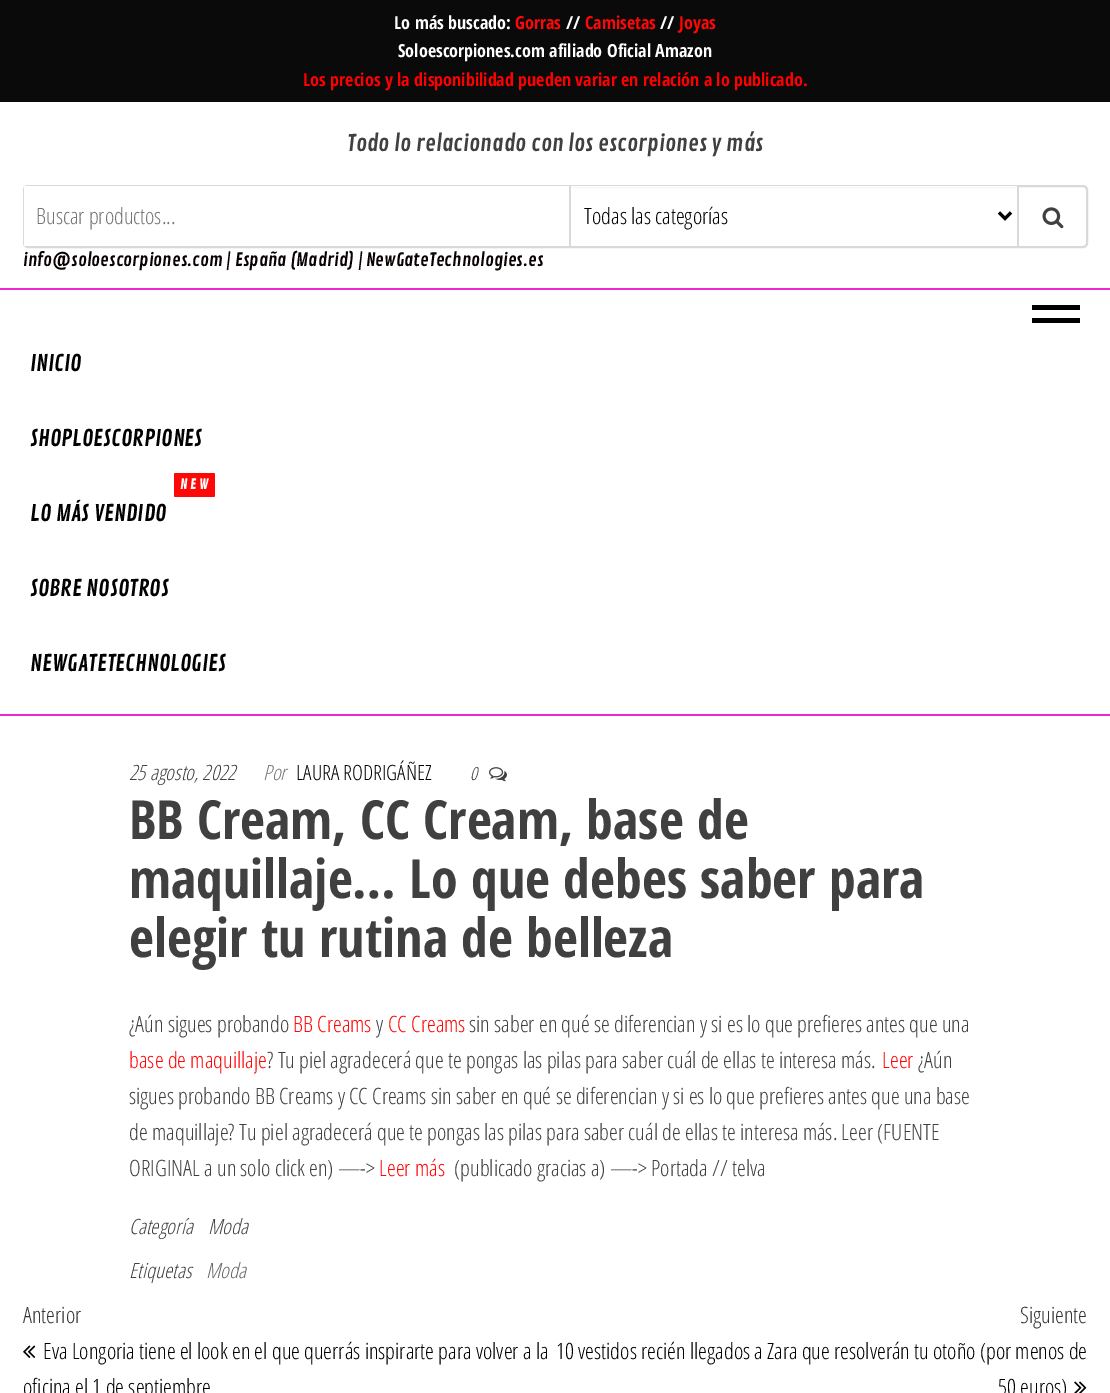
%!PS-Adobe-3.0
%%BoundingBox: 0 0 1110 1393
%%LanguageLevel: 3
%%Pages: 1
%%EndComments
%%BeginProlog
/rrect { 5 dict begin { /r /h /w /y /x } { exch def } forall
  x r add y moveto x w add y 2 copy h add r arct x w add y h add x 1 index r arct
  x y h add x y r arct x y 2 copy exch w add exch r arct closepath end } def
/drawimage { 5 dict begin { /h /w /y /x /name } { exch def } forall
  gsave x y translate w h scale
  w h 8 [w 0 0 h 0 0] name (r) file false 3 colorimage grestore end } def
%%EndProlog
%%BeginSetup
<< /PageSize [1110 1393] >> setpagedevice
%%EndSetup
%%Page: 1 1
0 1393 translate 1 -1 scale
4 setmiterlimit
1 setgray
0 0 1110 1393 rectfill
0.039 setgray
0 0 1110 102 rectfill
0.851 setgray
2 setlinewidth
24 186 1063 61 4 rrect stroke
1 setgray
24 186 545 60 rectfill
0.851 setgray
569 186 2 60 rectfill
1 setgray
571 186 446 1 rectfill
0 setgray
3 setlinewidth
newpath 999 212.5 moveto 1005 218.5 lineto 1011 212.5 lineto stroke
0.851 setgray
1017 186 2 60 rectfill
(images/1.raw) 1042 207 22 22 drawimage
0.922 0.157 0.82 setrgbcolor
0 288 1110 2 rectfill
0 714 1110 2 rectfill
0 setgray
1032 305 48 5 rectfill
1032 318 48 5 rectfill
1 0.027 0.027 setrgbcolor
174 473 41 24 1.5 rrect fill
(images/2.raw) 489 767 18 15 drawimage
(images/3.raw) 23 1345 13 13 drawimage
(images/4.raw) 1074 1381 13 12 drawimage
/OpenSansCondensed-Bold [18 0 0 -18 0 0] selectfont
1 setgray
394 29 moveto (Lo más buscado:) show
1 0.027 0.027 setrgbcolor
515 29 moveto (Gorras) show
1 setgray
566 29 moveto (//) show
1 0.027 0.027 setrgbcolor
585 29 moveto (Camisetas) show
1 setgray
660 29 moveto (//) show
1 0.027 0.027 setrgbcolor
679 29 moveto (Joyas) show
1 setgray
398 57 moveto (Soloescorpiones.com afiliado Oficial Amazon) show
1 0 0 setrgbcolor
303 86 moveto (Los precios y la disponibilidad pueden variar en relación a lo publicado.) show
/ContrailOne-Regular [22.5 0 0 -22.5 0 0] selectfont
0.251 setgray
347 151 moveto (Todo lo relacionado con los escorpiones y más) show
/OpenSansCondensed-Light [22.5 0 0 -22.5 0 0] selectfont
0.459 setgray
36 224 moveto (Buscar productos...) show
0 setgray
584 224 moveto (Todas las categorías) show
/ContrailOne-Regular [18 0 0 -18 0 0] selectfont
0.039 0.008 0.008 setrgbcolor
23 266 moveto (info@soloescorpiones.com | España \(Madrid\) | NewGateTechnologies.es) show
/ContrailOne-Regular [22.5 0 0 -22.5 0 0] selectfont
0 setgray
30 371 moveto (INICIO) show
30 446 moveto (SHOPLOESCORPIONES) show
/ContrailOne-Bold [13.5 0 0 -13.5 0 0] selectfont
1 setgray
180 489 moveto (N E W) show
/ContrailOne-Regular [22.5 0 0 -22.5 0 0] selectfont
0 setgray
30 521 moveto (LO MÁS VENDIDO) show
30 596 moveto (SOBRE NOSOTROS) show
30 671 moveto (NEWGATETECHNOLOGIES) show
/OpenSansCondensed-LightItalic [21 0 0 -21 0 0] selectfont
0.251 setgray
129 780 moveto (25 agosto, 2022) show
0.459 setgray
263 780 moveto (Por) show
/OpenSansCondensed-Light [21 0 0 -21 0 0] selectfont
0 setgray
296 780 moveto (LAURA RODRIGÁÑEZ) show
/OpenSansCondensed-LightItalic [18 0 0 -18 0 0] selectfont
0.251 setgray
470 780 moveto (0) show
/OpenSansCondensed-Bold [54 0 0 -54 0 0] selectfont
129 839 moveto (BB Cream, CC Cream, base de) show
129 898 moveto (maquillaje… Lo que debes saber para) show
129 957 moveto (elegir tu rutina de belleza) show
/OpenSansCondensed-Light [22.5 0 0 -22.5 0 0] selectfont
129 1032 moveto (¿Aún sigues probando) show
1 0.027 0.027 setrgbcolor
293 1032 moveto (BB Creams) show
0.251 setgray
376 1032 moveto (y) show
1 0.027 0.027 setrgbcolor
388 1032 moveto (CC Creams) show
0.251 setgray
469 1032 moveto (sin saber en qué se diferencian y si es lo que prefieres antes que una) show
1 0.027 0.027 setrgbcolor
129 1068 moveto (base de maquillaje) show
0.251 setgray
267 1068 moveto (? Tu piel agradecerá que te pongas las pilas para saber cuál de ellas te interesa más.) show
1 0.027 0.027 setrgbcolor
882 1068 moveto (Leer) show
0.251 setgray
918 1068 moveto (¿Aún) show
129 1104 moveto (sigues probando BB Creams y CC Creams sin saber en qué se diferencian y si es lo que prefieres antes que una base) show
129 1140 moveto (de maquillaje? Tu piel agradecerá que te pongas las pilas para saber cuál de ellas te interesa más. Leer \(FUENTE) show
129 1176 moveto (ORIGINAL a un solo click en\) —->) show
1 0.027 0.027 setrgbcolor
379 1176 moveto (Leer más) show
0.251 setgray
454 1176 moveto (\(publicado gracias a\) —-> Portada // telva) show
/OpenSansCondensed-LightItalic [21 0 0 -21 0 0] selectfont
129 1234 moveto (Categoría) show
208 1234 moveto (Moda) show
129 1278 moveto (Etiquetas) show
0.4 setgray
206 1278 moveto (Moda) show
/OpenSansCondensed-Light [22.5 0 0 -22.5 0 0] selectfont
0.2 setgray
23 1323 moveto (Anterior) show
0 setgray
43 1359 moveto (Eva Longoria tiene el look en el que querrás inspirarte para volver a la) show
23 1395 moveto (oficina el 1 de septiembre) show
0.2 setgray
1020 1323 moveto (Siguiente) show
0 setgray
556 1359 moveto (10 vestidos recién llegados a Zara que resolverán tu otoño \(por menos de) show
998 1395 moveto (50 euros\)) show
showpage
%%EOF
